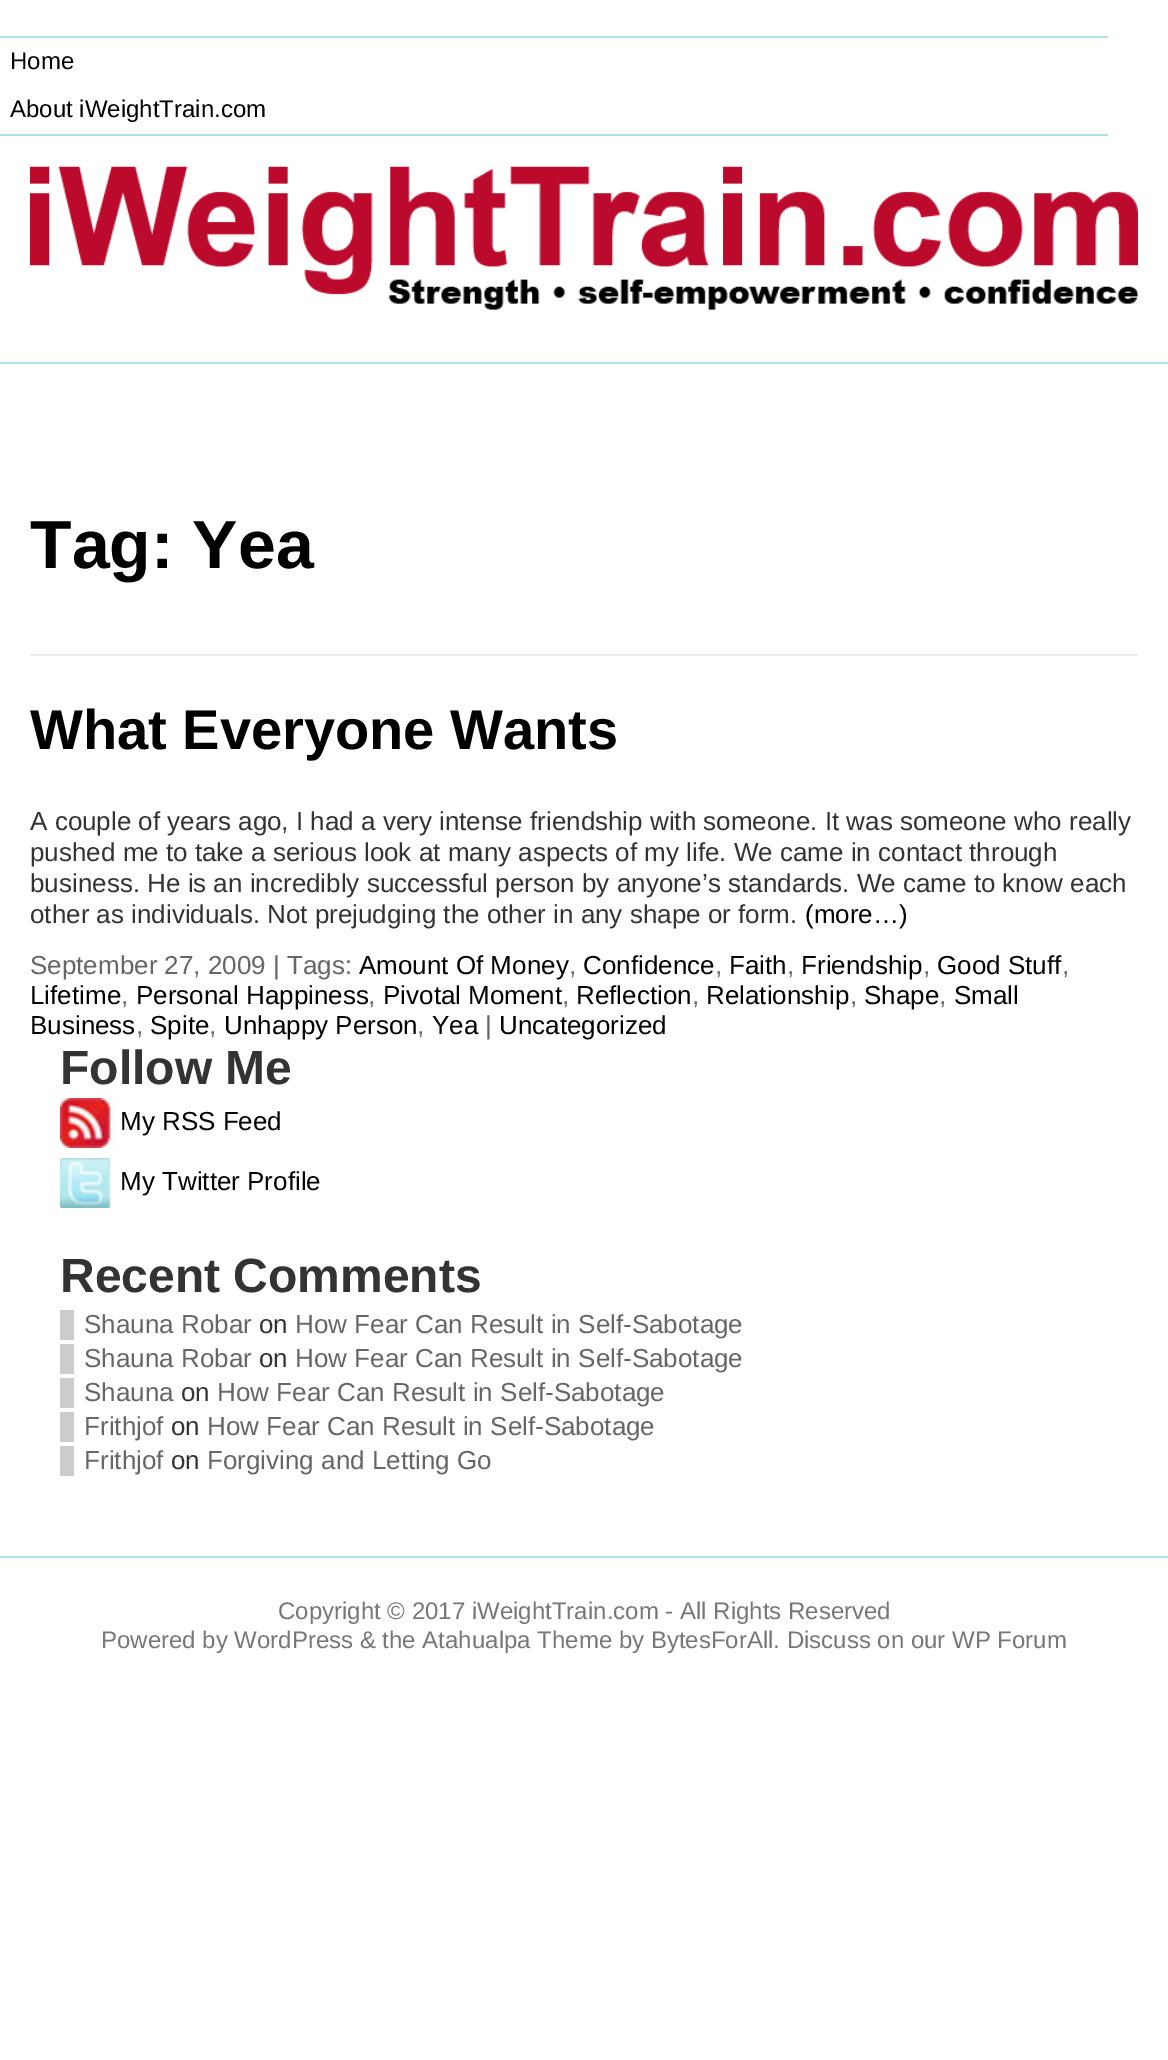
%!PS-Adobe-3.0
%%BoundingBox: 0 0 1168 2060
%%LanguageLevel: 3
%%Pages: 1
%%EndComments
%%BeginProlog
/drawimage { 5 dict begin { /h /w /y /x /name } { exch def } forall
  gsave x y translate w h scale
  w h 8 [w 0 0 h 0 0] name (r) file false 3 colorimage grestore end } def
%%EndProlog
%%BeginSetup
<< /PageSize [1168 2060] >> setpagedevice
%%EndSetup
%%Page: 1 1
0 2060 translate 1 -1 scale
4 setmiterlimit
1 setgray
0 0 1168 2060 rectfill
0.686 0.875 0.882 setrgbcolor
0 362 1168 2 rectfill
0 36 1108 2 rectfill
0 134 1108 2 rectfill
(images/1.raw) 30 166 1108 144 drawimage
0.933 setgray
30 654 1108 2 rectfill
(images/2.raw) 60 1098 58 50 drawimage
(images/3.raw) 60 1158 51 50 drawimage
0.8 setgray
60 1310 14 30 rectfill
60 1344 14 30 rectfill
60 1378 14 30 rectfill
60 1412 14 30 rectfill
60 1446 14 30 rectfill
0.686 0.875 0.882 setrgbcolor
0 1556 1168 2 rectfill
/LiberationSans-Regular [24 0 0 -24 0 0] selectfont
0 setgray
10 69 moveto (Home) show
10 117 moveto (About iWeightTrain.com) show
/LiberationSans-Bold [68 0 0 -68 0 0] selectfont
30 568 moveto (Tag: Yea) show
/LiberationSans-Bold [56 0 0 -56 0 0] selectfont
30 749 moveto (What Everyone Wants) show
/LiberationSans-Regular [26 0 0 -26 0 0] selectfont
0.2 setgray
30 830 moveto (A couple of years ago, I had a very intense friendship with someone. It was someone who really) show
30 861 moveto (pushed me to take a serious look at many aspects of my life. We came in contact through) show
30 892 moveto (business. He is an incredibly successful person by anyone’s standards. We came to know each) show
30 923 moveto (other as individuals. Not prejudging the other in any shape or form.) show
0 setgray
805 923 moveto (\(more…\)) show
0.4 setgray
30 974 moveto (September 27, 2009 | Tags:) show
0 setgray
359 974 moveto (Amount Of Money) show
0.4 setgray
569 974 moveto (,) show
0 setgray
583 974 moveto (Confidence) show
0.4 setgray
715 974 moveto (,) show
0 setgray
729 974 moveto (Faith) show
0.4 setgray
787 974 moveto (,) show
0 setgray
801 974 moveto (Friendship) show
0.4 setgray
923 974 moveto (,) show
0 setgray
937 974 moveto (Good Stuff) show
0.4 setgray
1062 974 moveto (,) show
0 setgray
30 1004 moveto (Lifetime) show
0.4 setgray
121 1004 moveto (,) show
0 setgray
136 1004 moveto (Personal Happiness) show
0.4 setgray
368 1004 moveto (,) show
0 setgray
383 1004 moveto (Pivotal Moment) show
0.4 setgray
562 1004 moveto (,) show
0 setgray
576 1004 moveto (Reflection) show
0.4 setgray
692 1004 moveto (,) show
0 setgray
706 1004 moveto (Relationship) show
0.4 setgray
850 1004 moveto (,) show
0 setgray
864 1004 moveto (Shape) show
0.4 setgray
939 1004 moveto (,) show
0 setgray
954 1004 moveto (Small) show
30 1034 moveto (Business) show
0.4 setgray
136 1034 moveto (,) show
0 setgray
150 1034 moveto (Spite) show
0.4 setgray
209 1034 moveto (,) show
0 setgray
224 1034 moveto (Unhappy Person) show
0.4 setgray
417 1034 moveto (,) show
0 setgray
432 1034 moveto (Yea) show
0.4 setgray
485 1034 moveto (|) show
0 setgray
499 1034 moveto (Uncategorized) show
/LiberationSans-Bold [48 0 0 -48 0 0] selectfont
0.2 setgray
60 1084 moveto (Follow Me) show
/LiberationSans-Regular [26 0 0 -26 0 0] selectfont
0 setgray
120 1130 moveto (My RSS Feed) show
120 1190 moveto (My Twitter Profile) show
/LiberationSans-Bold [48 0 0 -48 0 0] selectfont
0.2 setgray
60 1292 moveto (Recent Comments) show
/LiberationSans-Regular [26 0 0 -26 0 0] selectfont
0.4 setgray
84 1333 moveto (Shauna Robar) show
0.2 setgray
259 1333 moveto (on) show
0.4 setgray
295 1333 moveto (How Fear Can Result in Self-Sabotage) show
84 1367 moveto (Shauna Robar) show
0.2 setgray
259 1367 moveto (on) show
0.4 setgray
295 1367 moveto (How Fear Can Result in Self-Sabotage) show
84 1401 moveto (Shauna) show
0.2 setgray
181 1401 moveto (on) show
0.4 setgray
217 1401 moveto (How Fear Can Result in Self-Sabotage) show
84 1435 moveto (Frithjof) show
0.2 setgray
171 1435 moveto (on) show
0.4 setgray
207 1435 moveto (How Fear Can Result in Self-Sabotage) show
84 1469 moveto (Frithjof) show
0.2 setgray
171 1469 moveto (on) show
0.4 setgray
207 1469 moveto (Forgiving and Letting Go) show
/LiberationSans-Regular [24 0 0 -24 0 0] selectfont
0.467 setgray
278 1619 moveto (Copyright © 2017 iWeightTrain.com - All Rights Reserved) show
101 1648 moveto (Powered by WordPress & the Atahualpa Theme by BytesForAll. Discuss on our WP Forum) show
showpage
%%EOF
